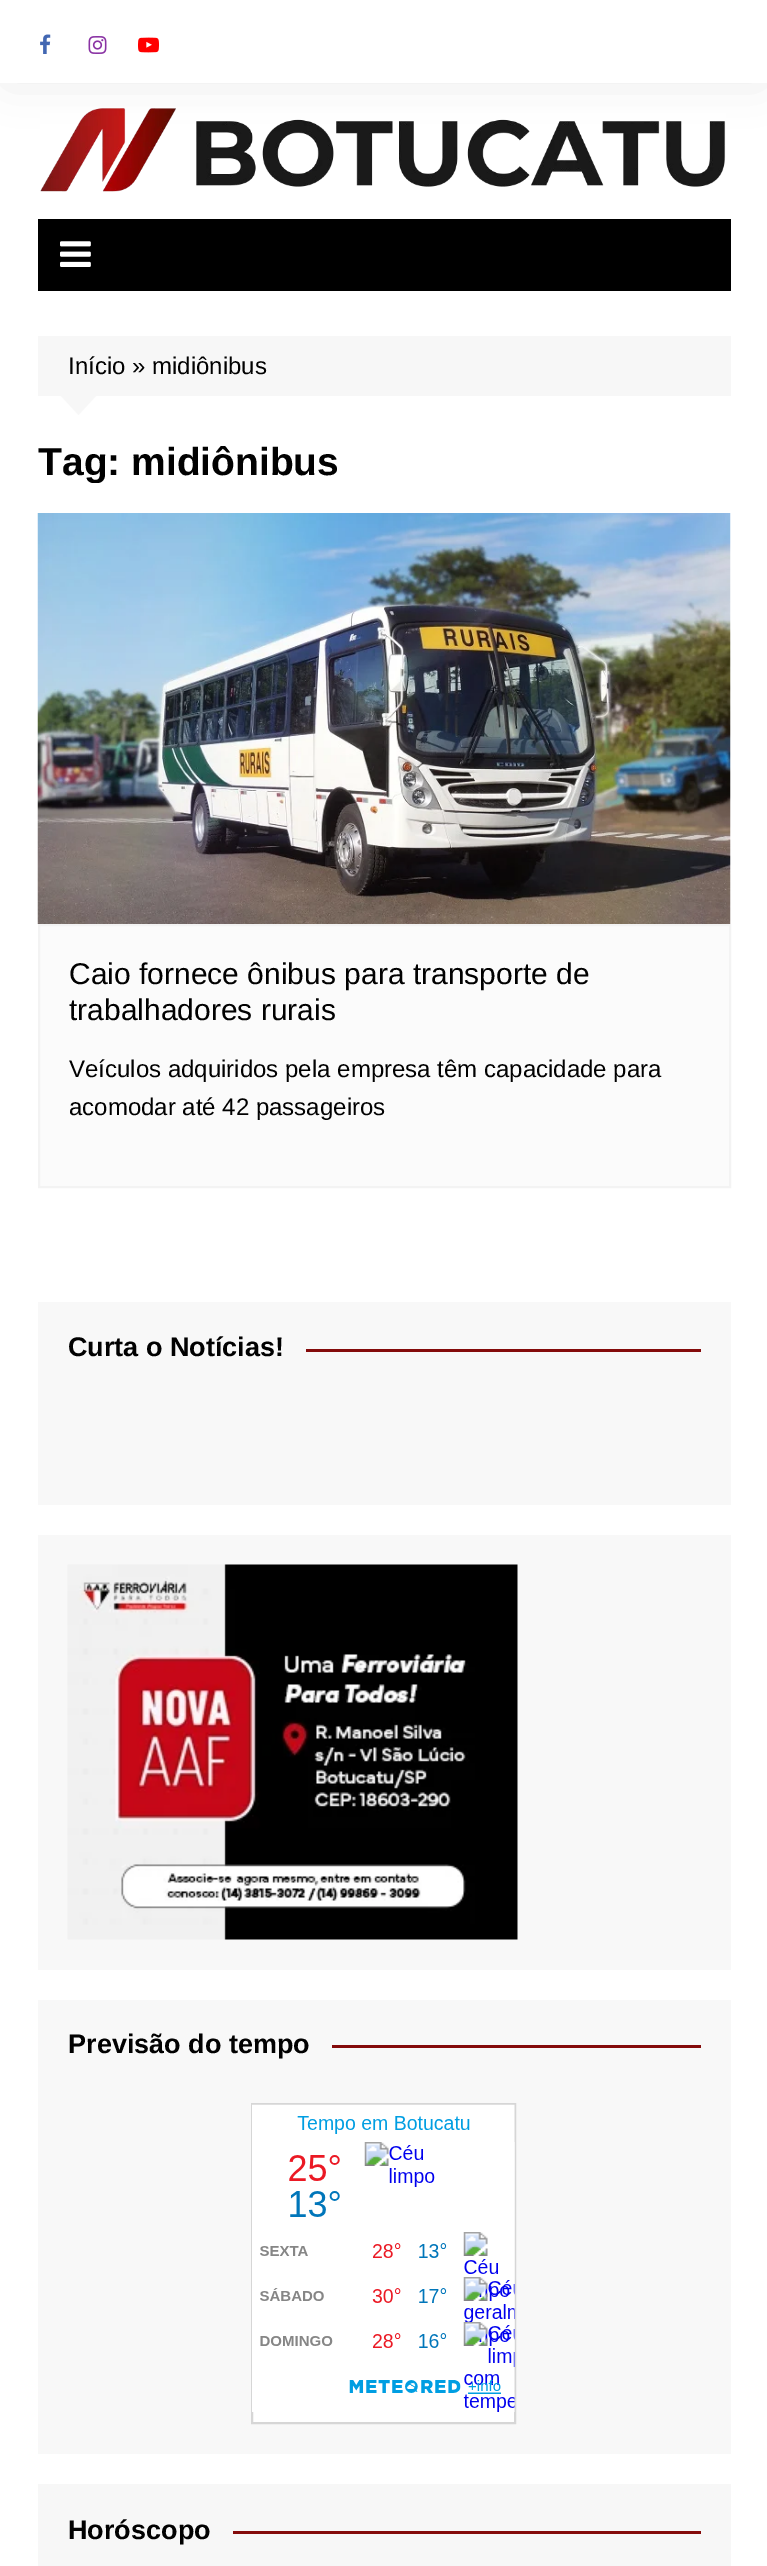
%!PS-Adobe-3.0
%%BoundingBox: 0 0 767 2566
%%LanguageLevel: 3
%%Pages: 1
%%EndComments
%%BeginProlog
/setalpha { dup .setfillconstantalpha .setstrokeconstantalpha } def
/rrect { 5 dict begin { /r /h /w /y /x } { exch def } forall
  x r add y moveto x w add y 2 copy h add r arct x w add y h add x 1 index r arct
  x y h add x y r arct x y 2 copy exch w add exch r arct closepath end } def
/softshadow { 12 dict begin { /a /b /q /h /w /y /x } { exch def } forall gsave /was 0 def
  9 -2 -9 { dup b mul 4 div /e exch def 1 sub .425 mul 2.718 exch exp 1 add a .99 .min exch div /now exch def
    1 1 now sub 1 was sub div sub setalpha /was now def
    w h .min e 2 mul add 0 gt { x e sub y e sub w e 2 mul add h e 2 mul add
      q e add b .6 mul add w h .min 2 div e add .min 0 .max rrect fill } if } for grestore end } def
/drawimage { 5 dict begin { /h /w /y /x /name } { exch def } forall
  gsave x y translate w h scale
  w h 8 [w 0 0 h 0 0] name (r) file false 3 colorimage grestore end } def
%%EndProlog
%%BeginSetup
<< /PageSize [767 2566] /PageUsesTransparency true >> setpagedevice
%%EndSetup
%%Page: 1 1
0 .pushpdf14devicefilter
0 2566 translate 1 -1 scale
4 setmiterlimit
1 setgray
0 0 767 2566 rectfill
0 setgray
8 11 753 67 0 22.5 0.1 softshadow
1 setgray
0 0 767 83 rectfill
(images/1.raw) 40 34 11 20 drawimage
(images/2.raw) 88 36 19 18 drawimage
(images/3.raw) 138 37 21 16 drawimage
(images/4.raw) 40 108 686 84 drawimage
0 setgray
38 219 693 72 rectfill
(images/5.raw) 60 241 31 26 drawimage
0.969 setgray
38 336 693 60 rectfill
newpath 60.5 395.5 moveto 96.5 395.5 lineto 78.5 415 lineto closepath fill
(images/6.raw) 37 513 694 411 drawimage
0.984 setgray
newpath 39 925 moveto 730 925 lineto 730 1187 lineto 39 1187 lineto closepath gsave fill grestore
0.953 setgray
2 setlinewidth
stroke
0.973 setgray
38 1302 693 203 rectfill
0.518 0.043 0.043 setrgbcolor
306 1349 395 3 rectfill
0.973 setgray
38 1535 693 435 rectfill
(images/7.raw) 67 1564 451 376 drawimage
38 2000 693 454 rectfill
0.518 0.043 0.043 setrgbcolor
332 2045 369 3 rectfill
1 setgray
253 2412 261 10 rectfill
0.839 setgray
252 2104 263 319 rectstroke
(images/8.raw) 252 2104 263 308 drawimage
0.969 setgray
38 2484 693 82 rectfill
0.518 0.043 0.043 setrgbcolor
233 2531 468 3 rectfill
/LiberationSans-Regular [24 0 0 -24 0 0] selectfont
0.004 setgray
68 374 moveto (Início » midiônibus) show
gsave
38 441 693 42 rectclip
/LiberationSans-Bold [39 0 0 -39 0 0] selectfont
38 475 moveto (Tag:) show
grestore
/LiberationSans-Bold [39 0 0 -39 0 0] selectfont
131 475 moveto (midiônibus) show
/LiberationSans-Regular [30 0 0 -30 0 0] selectfont
69 984 moveto (Caio fornece ônibus para transporte de) show
69 1020 moveto (trabalhadores rurais) show
/LiberationSans-Regular [24 0 0 -24 0 0] selectfont
69 1077 moveto (Veículos adquiridos pela empresa têm capacidade para) show
69 1115 moveto (acomodar até 42 passageiros) show
/LiberationSans-Bold [27 0 0 -27 0 0] selectfont
68 1356 moveto (Curta o Notícias!) show
68 2053 moveto (Previsão do tempo) show
68 2539 moveto (Horóscopo) show
.poppdf14devicefilter showpage
%%EOF
